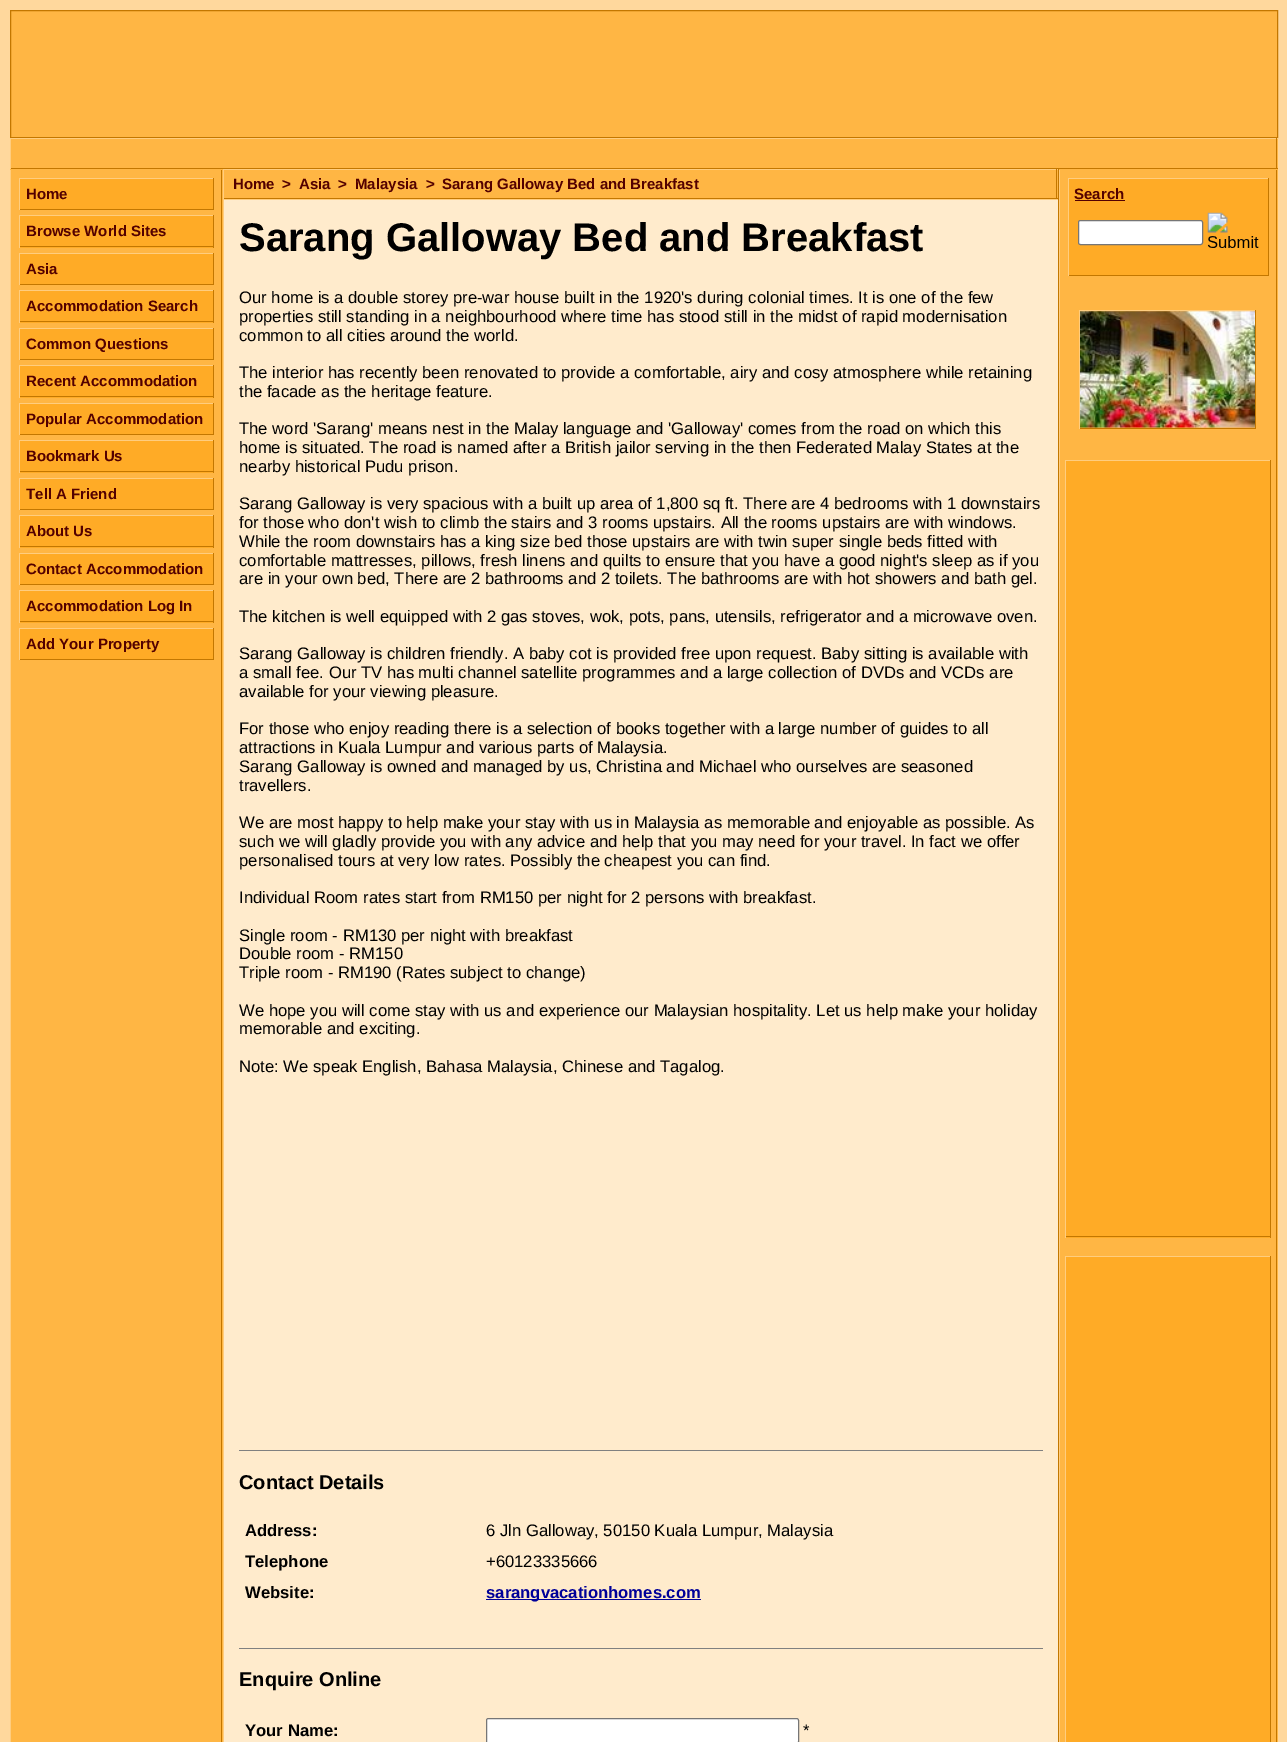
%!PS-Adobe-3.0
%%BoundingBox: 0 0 1287 1742
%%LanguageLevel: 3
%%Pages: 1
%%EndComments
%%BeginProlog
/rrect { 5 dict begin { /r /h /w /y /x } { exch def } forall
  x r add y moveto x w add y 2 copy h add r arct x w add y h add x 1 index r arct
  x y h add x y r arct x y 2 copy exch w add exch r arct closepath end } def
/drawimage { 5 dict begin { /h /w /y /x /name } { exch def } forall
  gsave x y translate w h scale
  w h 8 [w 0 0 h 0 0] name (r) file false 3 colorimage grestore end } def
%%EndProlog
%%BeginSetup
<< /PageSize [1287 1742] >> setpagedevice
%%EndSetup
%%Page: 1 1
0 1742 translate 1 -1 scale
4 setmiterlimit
1 0.847 0.616 setrgbcolor
0 0 1287 1742 rectfill
1 0.714 0.267 setrgbcolor
newpath 10.5 10.5 moveto 1277.5 10.5 lineto 1277.5 137.5 lineto 10.5 137.5 lineto closepath gsave fill grestore
0.765 0.467 0 setrgbcolor
stroke
1 0.714 0.267 setrgbcolor
11 139 1267 29 rectfill
1 0.804 0.498 setrgbcolor
10 138 1268 1 rectfill
0.765 0.467 0 setrgbcolor
1276 138 1 31 rectfill
10 168 1268 1 rectfill
1 0.804 0.498 setrgbcolor
10 138 1 31 rectfill
1 0.714 0.267 setrgbcolor
10 169 213 1 rectfill
1059 169 219 1 rectfill
1 0.922 0.8 setrgbcolor
224 200 834 1542 rectfill
0.765 0.467 0 setrgbcolor
1058 169 1 1573 rectfill
1 0.714 0.267 setrgbcolor
224 170 834 28 rectfill
1 0.804 0.498 setrgbcolor
223 169 835 1 rectfill
0.765 0.467 0 setrgbcolor
1056 169 1 30 rectfill
223 198 835 1 rectfill
1 0.804 0.498 setrgbcolor
223 169 1 30 rectfill
223 199 835 1 rectfill
223 199 1 1543 rectfill
0.502 setgray
239 1450 804 1 rectfill
0 0 0.6 setrgbcolor
486 1599 215 1 rectfill
0.502 setgray
239 1648 804 1 rectfill
1 setgray
486.5 1718.5 312 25 2 rrect gsave fill grestore
0.463 setgray
stroke
1 0.714 0.267 setrgbcolor
11 170 212 1572 rectfill
0.765 0.467 0 setrgbcolor
221 170 1 1572 rectfill
1 0.804 0.498 setrgbcolor
10 170 1 1572 rectfill
1 0.671 0.149 setrgbcolor
20 179 193 30 rectfill
1 0.804 0.498 setrgbcolor
19 178 195 1 rectfill
0.765 0.467 0 setrgbcolor
213 178 1 32 rectfill
19 209 195 1 rectfill
1 0.804 0.498 setrgbcolor
19 178 1 32 rectfill
1 0.671 0.149 setrgbcolor
20 216 193 32 rectfill
1 0.804 0.498 setrgbcolor
19 215 195 1 rectfill
0.765 0.467 0 setrgbcolor
213 215 1 33 rectfill
19 246 195 1 rectfill
1 0.804 0.498 setrgbcolor
19 215 1 33 rectfill
1 0.671 0.149 setrgbcolor
20 254 193 30 rectfill
1 0.804 0.498 setrgbcolor
19 253 195 1 rectfill
0.765 0.467 0 setrgbcolor
213 253 1 32 rectfill
19 284 195 1 rectfill
1 0.804 0.498 setrgbcolor
19 253 1 32 rectfill
1 0.671 0.149 setrgbcolor
20 291 193 32 rectfill
1 0.804 0.498 setrgbcolor
19 290 195 1 rectfill
0.765 0.467 0 setrgbcolor
213 290 1 33 rectfill
19 321 195 1 rectfill
1 0.804 0.498 setrgbcolor
19 290 1 33 rectfill
1 0.671 0.149 setrgbcolor
20 329 193 30 rectfill
1 0.804 0.498 setrgbcolor
19 328 195 1 rectfill
0.765 0.467 0 setrgbcolor
213 328 1 32 rectfill
19 359 195 1 rectfill
1 0.804 0.498 setrgbcolor
19 328 1 32 rectfill
1 0.671 0.149 setrgbcolor
20 366 193 32 rectfill
1 0.804 0.498 setrgbcolor
19 365 195 1 rectfill
0.765 0.467 0 setrgbcolor
213 365 1 33 rectfill
19 396 195 1 rectfill
1 0.804 0.498 setrgbcolor
19 365 1 33 rectfill
1 0.671 0.149 setrgbcolor
20 404 193 30 rectfill
1 0.804 0.498 setrgbcolor
19 403 195 1 rectfill
0.765 0.467 0 setrgbcolor
213 403 1 32 rectfill
19 434 195 1 rectfill
1 0.804 0.498 setrgbcolor
19 403 1 32 rectfill
1 0.671 0.149 setrgbcolor
20 441 193 32 rectfill
1 0.804 0.498 setrgbcolor
19 440 195 1 rectfill
0.765 0.467 0 setrgbcolor
213 440 1 33 rectfill
19 471 195 1 rectfill
1 0.804 0.498 setrgbcolor
19 440 1 33 rectfill
1 0.671 0.149 setrgbcolor
20 479 193 30 rectfill
1 0.804 0.498 setrgbcolor
19 478 195 1 rectfill
0.765 0.467 0 setrgbcolor
213 478 1 32 rectfill
19 509 195 1 rectfill
1 0.804 0.498 setrgbcolor
19 478 1 32 rectfill
1 0.671 0.149 setrgbcolor
20 516 193 32 rectfill
1 0.804 0.498 setrgbcolor
19 515 195 1 rectfill
0.765 0.467 0 setrgbcolor
213 515 1 33 rectfill
19 546 195 1 rectfill
1 0.804 0.498 setrgbcolor
19 515 1 33 rectfill
1 0.671 0.149 setrgbcolor
20 554 193 30 rectfill
1 0.804 0.498 setrgbcolor
19 553 195 1 rectfill
0.765 0.467 0 setrgbcolor
213 553 1 32 rectfill
19 584 195 1 rectfill
1 0.804 0.498 setrgbcolor
19 553 1 32 rectfill
1 0.671 0.149 setrgbcolor
20 591 193 32 rectfill
1 0.804 0.498 setrgbcolor
19 590 195 1 rectfill
0.765 0.467 0 setrgbcolor
213 590 1 33 rectfill
19 621 195 1 rectfill
1 0.804 0.498 setrgbcolor
19 590 1 33 rectfill
1 0.671 0.149 setrgbcolor
20 629 193 30 rectfill
1 0.804 0.498 setrgbcolor
19 628 195 1 rectfill
0.765 0.467 0 setrgbcolor
213 628 1 32 rectfill
19 659 195 1 rectfill
1 0.804 0.498 setrgbcolor
19 628 1 32 rectfill
1 0.714 0.267 setrgbcolor
1060 170 218 1572 rectfill
0.765 0.467 0 setrgbcolor
1276 170 1 1572 rectfill
1 0.804 0.498 setrgbcolor
1059 170 1 1572 rectfill
1 0.671 0.149 setrgbcolor
1069 179 199 96 rectfill
1 0.804 0.498 setrgbcolor
1068 178 201 1 rectfill
0.765 0.467 0 setrgbcolor
1268 178 1 98 rectfill
1 0.804 0.498 setrgbcolor
1068 178 1 28 rectfill
0.325 0 0 setrgbcolor
1075 200 50 1 rectfill
0.765 0.467 0 setrgbcolor
1068 275 201 1 rectfill
1 0.804 0.498 setrgbcolor
1068 206 1 70 rectfill
1 setgray
1078.5 220.5 124 24 2 rrect gsave fill grestore
0.463 setgray
stroke
(images/1.raw) 1207 212 52 36 drawimage
1 0.804 0.498 setrgbcolor
1079 310 177 1 rectfill
0.765 0.467 0 setrgbcolor
1255 310 1 119 rectfill
1079 428 177 1 rectfill
1 0.804 0.498 setrgbcolor
1079 310 1 119 rectfill
(images/2.raw) 1080 311 175 117 drawimage
1 0.671 0.149 setrgbcolor
1066 461 204 777 rectfill
1 0.804 0.498 setrgbcolor
1065 460 206 1 rectfill
0.765 0.467 0 setrgbcolor
1270 460 1 778 rectfill
1065 1236 206 1 rectfill
1 0.804 0.498 setrgbcolor
1065 460 1 778 rectfill
1 0.671 0.149 setrgbcolor
1066 1257 204 485 rectfill
1 0.804 0.498 setrgbcolor
1065 1256 206 1 rectfill
0.765 0.467 0 setrgbcolor
1270 1256 1 486 rectfill
1 0.804 0.498 setrgbcolor
1065 1256 1 486 rectfill
/LiberationSans-Bold [15 0 0 -15 0 0] selectfont
0.325 0 0 setrgbcolor
233 189 moveto (Home) show
282 189 moveto (>) show
299 189 moveto (Asia) show
338 189 moveto (>) show
355 189 moveto (Malaysia) show
426 189 moveto (>) show
442 189 moveto (Sarang Galloway Bed and Breakfast) show
/LiberationSans-Bold [40 0 0 -40 0 0] selectfont
0 setgray
239 251 moveto (Sarang Galloway Bed and Breakfast) show
/LiberationSans-Regular [16.65 0 0 -16.65 0 0] selectfont
239 303 moveto (Our home is a double storey pre-war house built in the 1920's during colonial times. It is one of the few) show
239 322 moveto (properties still standing in a neighbourhood where time has stood still in the midst of rapid modernisation) show
239 341 moveto (common to all cities around the world.) show
239 378 moveto (The interior has recently been renovated to provide a comfortable, airy and cosy atmosphere while retaining) show
239 397 moveto (the facade as the heritage feature.) show
239 434 moveto (The word 'Sarang' means nest in the Malay language and 'Galloway' comes from the road on which this) show
239 453 moveto (home is situated. The road is named after a British jailor serving in the then Federated Malay States at the) show
239 472 moveto (nearby historical Pudu prison.) show
239 509 moveto (Sarang Galloway is very spacious with a built up area of 1,800 sq ft. There are 4 bedrooms with 1 downstairs) show
239 528 moveto (for those who don't wish to climb the stairs and 3 rooms upstairs. All the rooms upstairs are with windows.) show
239 547 moveto (While the room downstairs has a king size bed those upstairs are with twin super single beds fitted with) show
239 566 moveto (comfortable mattresses, pillows, fresh linens and quilts to ensure that you have a good night's sleep as if you) show
239 584 moveto (are in your own bed, There are 2 bathrooms and 2 toilets. The bathrooms are with hot showers and bath gel.) show
239 622 moveto (The kitchen is well equipped with 2 gas stoves, wok, pots, pans, utensils, refrigerator and a microwave oven.) show
239 659 moveto (Sarang Galloway is children friendly. A baby cot is provided free upon request. Baby sitting is available with) show
239 678 moveto (a small fee. Our TV has multi channel satellite programmes and a large collection of DVDs and VCDs are) show
239 697 moveto (available for your viewing pleasure.) show
239 734 moveto (For those who enjoy reading there is a selection of books together with a large number of guides to all) show
239 753 moveto (attractions in Kuala Lumpur and various parts of Malaysia.) show
239 772 moveto (Sarang Galloway is owned and managed by us, Christina and Michael who ourselves are seasoned) show
239 791 moveto (travellers.) show
239 828 moveto (We are most happy to help make your stay with us in Malaysia as memorable and enjoyable as possible. As) show
239 847 moveto (such we will gladly provide you with any advice and help that you may need for your travel. In fact we offer) show
239 866 moveto (personalised tours at very low rates. Possibly the cheapest you can find.) show
239 903 moveto (Individual Room rates start from RM150 per night for 2 persons with breakfast.) show
239 941 moveto (Single room - RM130 per night with breakfast) show
239 959 moveto (Double room - RM150) show
239 978 moveto (Triple room - RM190 \(Rates subject to change\)) show
239 1016 moveto (We hope you will come stay with us and experience our Malaysian hospitality. Let us help make your holiday) show
239 1034 moveto (memorable and exciting.) show
239 1072 moveto (Note: We speak English, Bahasa Malaysia, Chinese and Tagalog.) show
/LiberationSans-Bold [20 0 0 -20 0 0] selectfont
239 1489 moveto (Contact Details) show
/LiberationSans-Bold [16.65 0 0 -16.65 0 0] selectfont
245 1536 moveto (Address:) show
/LiberationSans-Regular [16.65 0 0 -16.65 0 0] selectfont
486 1536 moveto (6 Jln Galloway, 50150 Kuala Lumpur, Malaysia) show
/LiberationSans-Bold [16.65 0 0 -16.65 0 0] selectfont
245 1567 moveto (Telephone) show
/LiberationSans-Regular [16.65 0 0 -16.65 0 0] selectfont
486 1567 moveto (+60123335666) show
/LiberationSans-Bold [16.65 0 0 -16.65 0 0] selectfont
245 1598 moveto (Website:) show
0 0 0.6 setrgbcolor
486 1598 moveto (sarangvacationhomes.com) show
/LiberationSans-Bold [20 0 0 -20 0 0] selectfont
0 setgray
239 1686 moveto (Enquire Online) show
/LiberationSans-Bold [16.65 0 0 -16.65 0 0] selectfont
245 1736 moveto (Your Name:) show
/LiberationSans-Regular [16.65 0 0 -16.65 0 0] selectfont
803 1736 moveto (*) show
/LiberationSans-Bold [15 0 0 -15 0 0] selectfont
0.325 0 0 setrgbcolor
26 199 moveto (Home) show
26 236 moveto (Browse World Sites) show
26 274 moveto (Asia) show
26 311 moveto (Accommodation Search) show
26 349 moveto (Common Questions) show
26 386 moveto (Recent Accommodation) show
26 424 moveto (Popular Accommodation) show
26 461 moveto (Bookmark Us) show
26 499 moveto (Tell A Friend) show
26 536 moveto (About Us) show
26 574 moveto (Contact Accommodation) show
26 611 moveto (Accommodation Log In) show
26 649 moveto (Add Your Property) show
1074 199 moveto (Search) show
showpage
%%EOF
